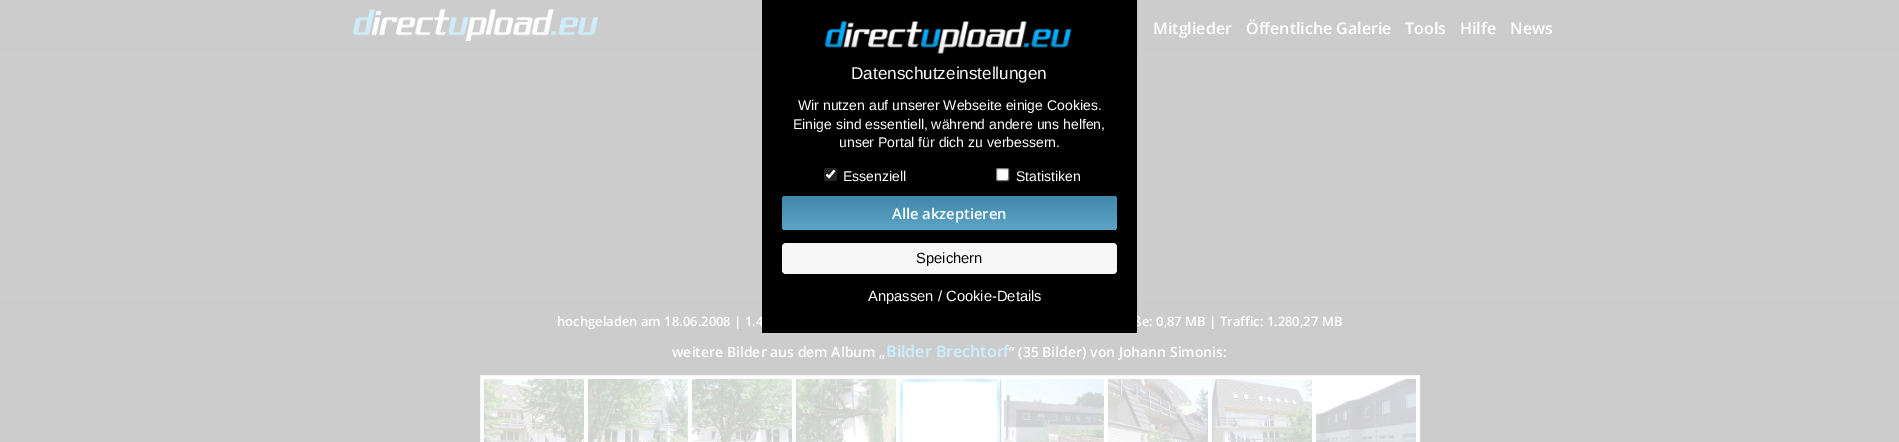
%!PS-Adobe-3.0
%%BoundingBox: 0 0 1899 442
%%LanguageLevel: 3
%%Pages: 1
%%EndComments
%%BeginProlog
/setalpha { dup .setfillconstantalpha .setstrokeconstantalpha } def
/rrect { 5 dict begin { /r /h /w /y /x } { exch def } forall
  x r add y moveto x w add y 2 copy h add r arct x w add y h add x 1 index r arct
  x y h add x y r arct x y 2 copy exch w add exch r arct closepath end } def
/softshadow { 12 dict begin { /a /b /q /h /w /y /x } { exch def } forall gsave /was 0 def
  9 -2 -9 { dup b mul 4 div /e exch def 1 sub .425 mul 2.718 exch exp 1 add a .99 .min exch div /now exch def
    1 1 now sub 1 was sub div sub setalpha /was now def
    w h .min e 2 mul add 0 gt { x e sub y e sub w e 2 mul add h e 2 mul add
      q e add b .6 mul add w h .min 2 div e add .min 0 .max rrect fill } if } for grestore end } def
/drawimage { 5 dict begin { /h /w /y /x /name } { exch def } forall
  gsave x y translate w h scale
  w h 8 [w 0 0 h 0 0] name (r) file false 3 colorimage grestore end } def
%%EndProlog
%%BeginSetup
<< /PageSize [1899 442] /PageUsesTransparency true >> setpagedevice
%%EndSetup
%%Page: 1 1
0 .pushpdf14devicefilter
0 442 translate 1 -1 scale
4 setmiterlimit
1 setgray
0 0 1899 442 rectfill
(images/1.raw) 0 50 1899 252 drawimage
0.8 setgray
0 0 1899 50 rectfill
(images/2.raw) 352 8 246 34 drawimage
0.98 setalpha
0 50 1899 252 rectfill
1 setalpha
0 302 1899 140 rectfill
1 setgray
newpath 480.5 375.5 moveto 1419.5 375.5 lineto 1419.5 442.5 lineto 480.5 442.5 lineto closepath gsave fill grestore
0.965 setgray
stroke
(images/4.raw) 484 379 100 63 drawimage
(images/5.raw) 588 379 100 63 drawimage
(images/6.raw) 692 379 100 63 drawimage
(images/7.raw) 796 379 100 63 drawimage
gsave
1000 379 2 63 rectclip
0.8 setgray
901 380 100 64 0 0.5 0.8 softshadow
grestore
(images/8.raw) 900 379 100 63 drawimage
(images/9.raw) 1004 379 100 63 drawimage
(images/10.raw) 1108 379 100 63 drawimage
(images/11.raw) 1212 379 100 63 drawimage
(images/12.raw) 1316 379 100 63 drawimage
/OpenSans-SemiBold [16 0 0 -16 0 0] selectfont
1 setgray
1153 34 moveto (Mitglieder) show
1246 34 moveto (Öffentliche Galerie) show
1405 34 moveto (Tools) show
1460 34 moveto (Hilfe) show
1510 34 moveto (News) show
/OpenSans-SemiBold [13 0 0 -13 0 0] selectfont
557 326 moveto (hochgeladen am 18.06.2008 | 1.4) show
1133 326 moveto (ße: 0,87 MB | Traffic: 1.280,27 MB) show
0 setgray
762 0 375 333 rectfill
(images/3.raw) 824 21 248 33 drawimage
/LiberationSans-Regular [14.75 0 0 -14.75 0 0] selectfont
1 setgray
868 301 moveto (Anpassen / Cookie-Details) show
0.969 setgray
782 243 335 31 4 rrect fill
0 setgray
916 263 moveto (Speichern) show
gsave 782 196 335 34 4 rrect clip newpath
<< /ShadingType 2 /ColorSpace /DeviceRGB /Coords [950 196 950 230] /Extend [true true] /Function << /FunctionType 2 /Domain [0 1] /C0 [0.255 0.537 0.671] /C1 [0.357 0.643 0.776] /N 1 >> >> shfill grestore
/OpenSans-SemiBold [14.75 0 0 -14.75 0 0] selectfont
1 setgray
892 219 moveto (Alle akzeptieren) show
/LiberationSans-Regular [14 0 0 -14 0 0] selectfont
1016 181 moveto (Statistiken) show
996.5 168.5 12 12 1.5 rrect gsave fill grestore
0.463 setgray
stroke
1 setgray
843 181 moveto (Essenziell) show
0.137 setgray
824 168 13 13 2 rrect fill
1 setgray
2.1 setlinewidth
newpath 826.5 174.5 moveto 829 177 lineto 834.5 170.5 lineto stroke
839 147 moveto (unser Portal für dich zu verbessern.) show
793 129 moveto (Einige sind essentiell, während andere uns helfen,) show
798 110 moveto (Wir nutzen auf unserer Webseite einige Cookies.) show
/LiberationSans-Regular [17.1 0 0 -17.1 0 0] selectfont
851 79 moveto (Datenschutzeinstellungen) show
/OpenSans-SemiBold [14 0 0 -14 0 0] selectfont
672 357 moveto (weitere Bilder aus dem Album „) show
/OpenSans-SemiBold [16 0 0 -16 0 0] selectfont
0.8 0.937 1 setrgbcolor
886 357 moveto (Bilder Brechtorf) show
/OpenSans-SemiBold [14 0 0 -14 0 0] selectfont
1 setgray
1009 357 moveto (” \(35 Bilder\) von Johann Simonis:) show
.poppdf14devicefilter showpage
%%EOF
